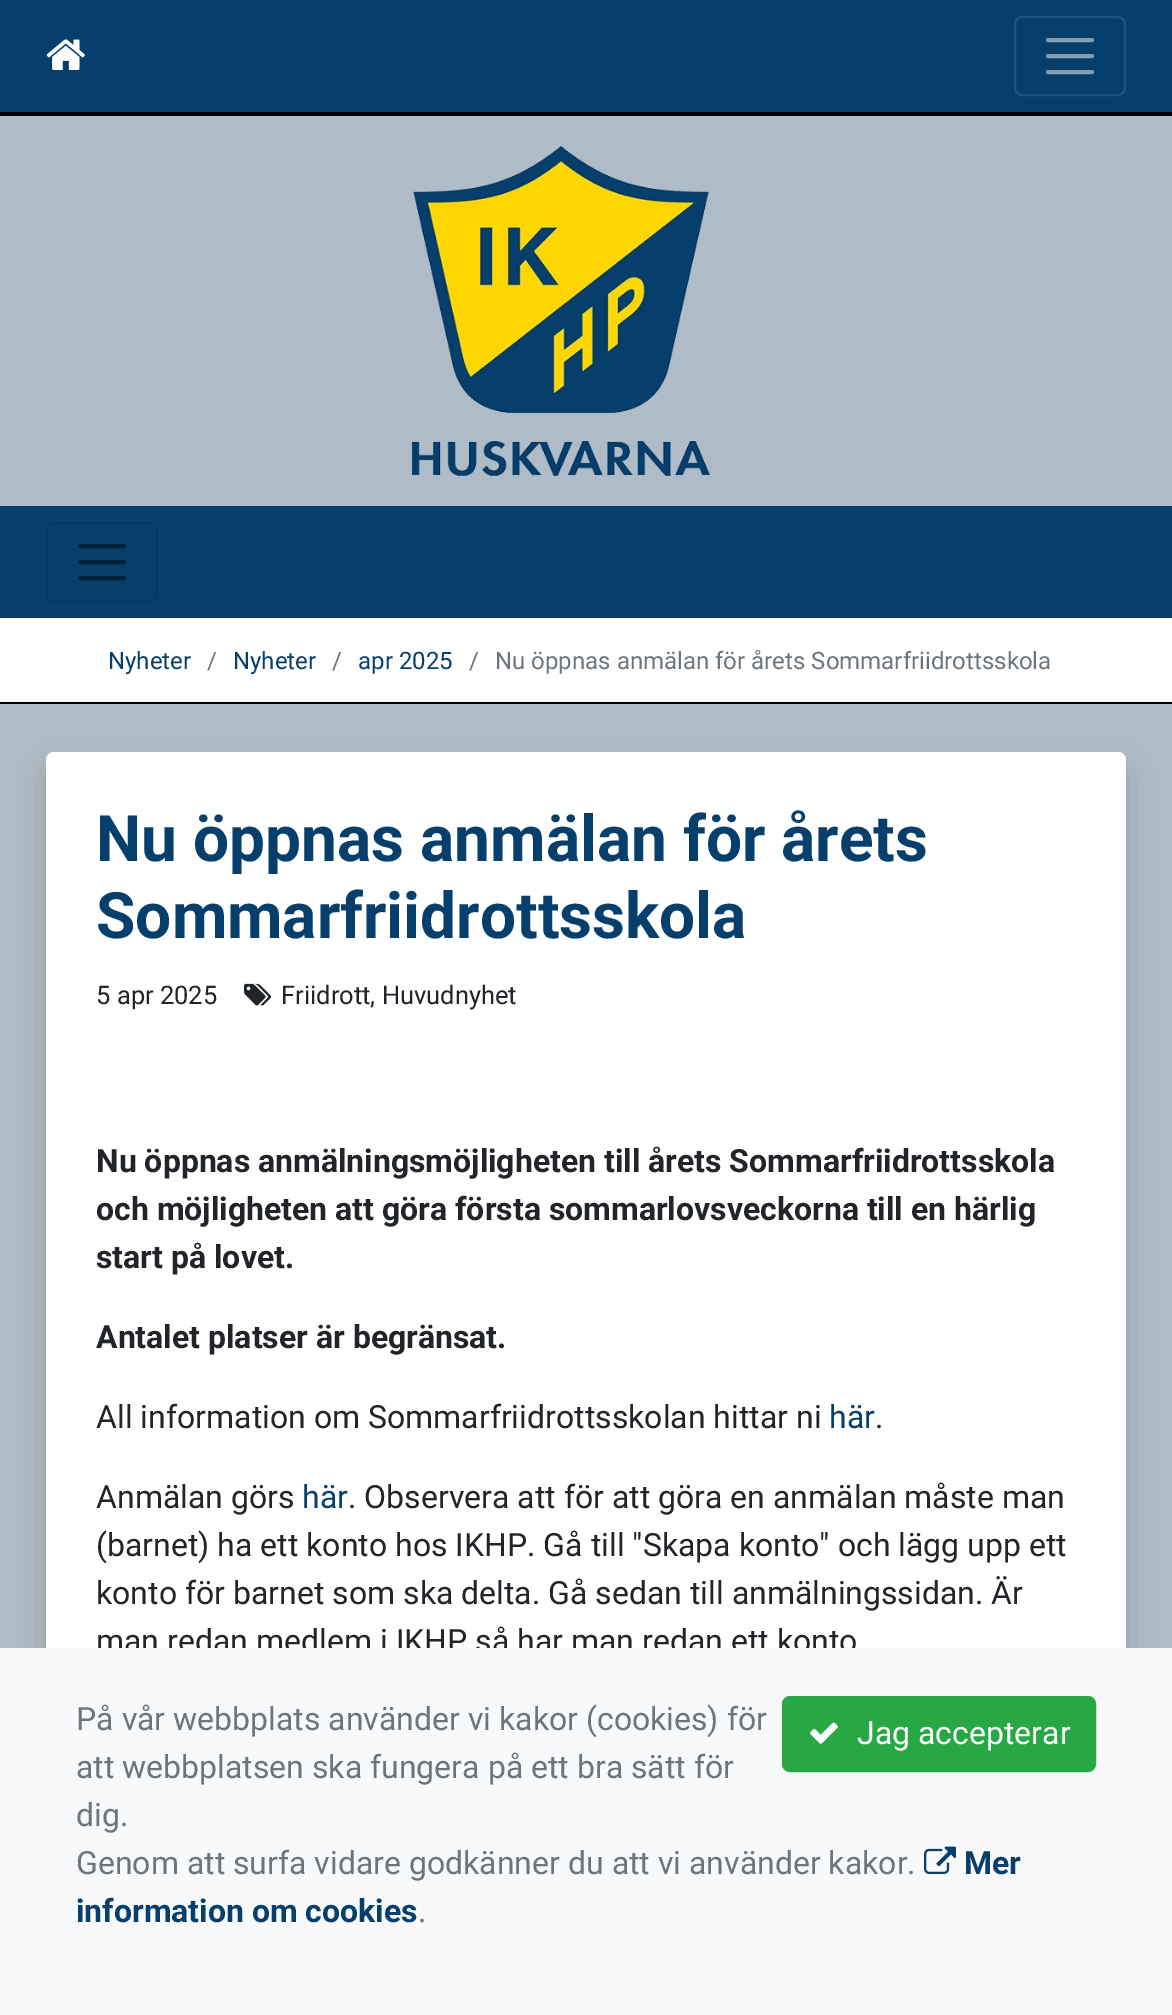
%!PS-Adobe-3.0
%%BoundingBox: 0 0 1172 2015
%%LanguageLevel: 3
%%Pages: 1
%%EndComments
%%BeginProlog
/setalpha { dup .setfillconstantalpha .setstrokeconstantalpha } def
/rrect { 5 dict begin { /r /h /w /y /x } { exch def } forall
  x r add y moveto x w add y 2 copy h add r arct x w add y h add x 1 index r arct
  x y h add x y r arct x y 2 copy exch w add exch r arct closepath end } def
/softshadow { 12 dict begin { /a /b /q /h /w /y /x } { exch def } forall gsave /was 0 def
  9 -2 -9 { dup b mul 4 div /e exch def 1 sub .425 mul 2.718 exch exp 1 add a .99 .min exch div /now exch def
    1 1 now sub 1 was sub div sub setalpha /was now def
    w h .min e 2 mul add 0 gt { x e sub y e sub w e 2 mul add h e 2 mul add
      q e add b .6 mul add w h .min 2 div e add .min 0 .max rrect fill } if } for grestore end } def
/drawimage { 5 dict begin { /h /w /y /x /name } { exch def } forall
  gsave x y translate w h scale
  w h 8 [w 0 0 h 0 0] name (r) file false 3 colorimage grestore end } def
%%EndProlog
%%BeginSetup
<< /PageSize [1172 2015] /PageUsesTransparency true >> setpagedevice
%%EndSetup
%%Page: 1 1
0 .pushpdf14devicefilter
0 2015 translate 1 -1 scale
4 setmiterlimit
0.686 0.737 0.78 setrgbcolor
0 0 1172 2015 rectfill
0.024 0.247 0.424 setrgbcolor
0 0 1172 112 rectfill
0 setgray
0 112 1172 4 rectfill
(images/1.raw) 46 39 39 31 drawimage
0.122 0.322 0.482 setrgbcolor
2 setlinewidth
1015 17 110 78 7 rrect stroke
0.514 0.624 0.714 setrgbcolor
4 setlinewidth
1 setlinecap
newpath 1048 40 moveto 1092 40 lineto 1048 56 moveto 1092 56 lineto 1048 72 moveto 1092 72 lineto stroke
(images/2.raw) 412 146 298 330 drawimage
0.024 0.247 0.424 setrgbcolor
0 506 1172 112 rectfill
0.02 0.224 0.38 setrgbcolor
2 setlinewidth
0 setlinecap
47 523 110 78 7 rrect stroke
0.012 0.125 0.212 setrgbcolor
4 setlinewidth
1 setlinecap
newpath 80 546 moveto 124 546 lineto 80 562 moveto 124 562 lineto 80 578 moveto 124 578 lineto stroke
1 setgray
0 618 1172 84 rectfill
0 setgray
0 702 1172 2 rectfill
46 768 1080 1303 8 16 0.15 softshadow
1 setgray
46 752 1080 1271 8 rrect fill
(images/3.raw) 244 983 28 23 drawimage
/Roboto-Regular [24 0 0 -24 0 0] selectfont
0.024 0.247 0.424 setrgbcolor
108 669 moveto (Nyheter) show
0.424 0.459 0.49 setrgbcolor
207 669 moveto (/) show
0.024 0.247 0.424 setrgbcolor
233 669 moveto (Nyheter) show
0.424 0.459 0.49 setrgbcolor
332 669 moveto (/) show
0.024 0.247 0.424 setrgbcolor
358 669 moveto (apr 2025) show
0.424 0.459 0.49 setrgbcolor
469 669 moveto (/) show
495 669 moveto (Nu öppnas anmälan för årets Sommarfriidrottsskola) show
/Roboto-Bold [64 0 0 -64 0 0] selectfont
0.024 0.247 0.424 setrgbcolor
96 861 moveto (Nu öppnas anmälan för årets) show
96 938 moveto (Sommarfriidrottsskola) show
/Roboto-Regular [25.5 0 0 -25.5 0 0] selectfont
0.129 0.145 0.161 setrgbcolor
96 1004 moveto (5 apr 2025) show
281 1004 moveto (Friidrott, Huvudnyhet) show
/Roboto-Bold [32 0 0 -32 0 0] selectfont
96 1172 moveto (Nu öppnas anmälningsmöjligheten till årets Sommarfriidrottsskola) show
96 1220 moveto (och möjligheten att göra första sommarlovsveckorna till en härlig) show
96 1268 moveto (start på lovet.) show
96 1348 moveto (Antalet platser är begränsat.) show
/Roboto-Regular [32 0 0 -32 0 0] selectfont
96 1428 moveto (All information om Sommarfriidrottsskolan hittar ni) show
0.024 0.247 0.424 setrgbcolor
829 1428 moveto (här) show
0.129 0.145 0.161 setrgbcolor
875 1428 moveto (.) show
96 1508 moveto (Anmälan görs) show
0.024 0.247 0.424 setrgbcolor
302 1508 moveto (här) show
0.129 0.145 0.161 setrgbcolor
348 1508 moveto (. Observera att för att göra en anmälan måste man) show
96 1556 moveto (\(barnet\) ha ett konto hos IKHP. Gå till "Skapa konto" och lägg upp ett) show
96 1604 moveto (konto för barnet som ska delta. Gå sedan till anmälningssidan. Är) show
96 1652 moveto (man redan medlem i IKHP så har man redan ett konto) show
0.973 0.976 0.98 setrgbcolor
0 1648 1172 367 rectfill
0.424 0.459 0.49 setrgbcolor
76 1730 moveto (På vår webbplats använder vi kakor \(cookies\) för) show
76 1778 moveto (att webbplatsen ska fungera på ett bra sätt för) show
76 1826 moveto (dig.) show
76 1874 moveto (Genom att surfa vidare godkänner du att vi använder kakor.) show
(images/4.raw) 924 1846 32 28 drawimage
/Roboto-Bold [32 0 0 -32 0 0] selectfont
0.024 0.247 0.424 setrgbcolor
964 1874 moveto (Mer) show
76 1922 moveto (information om cookies) show
/Roboto-Regular [32 0 0 -32 0 0] selectfont
0.424 0.459 0.49 setrgbcolor
418 1922 moveto (.) show
0.157 0.655 0.271 setrgbcolor
783 1697 312 74 7 rrect gsave fill grestore
2 setlinewidth
0 setlinecap
stroke
(images/5.raw) 810 1722 28 22 drawimage
1 setgray
857 1744 moveto (Jag accepterar) show
.poppdf14devicefilter showpage
%%EOF
